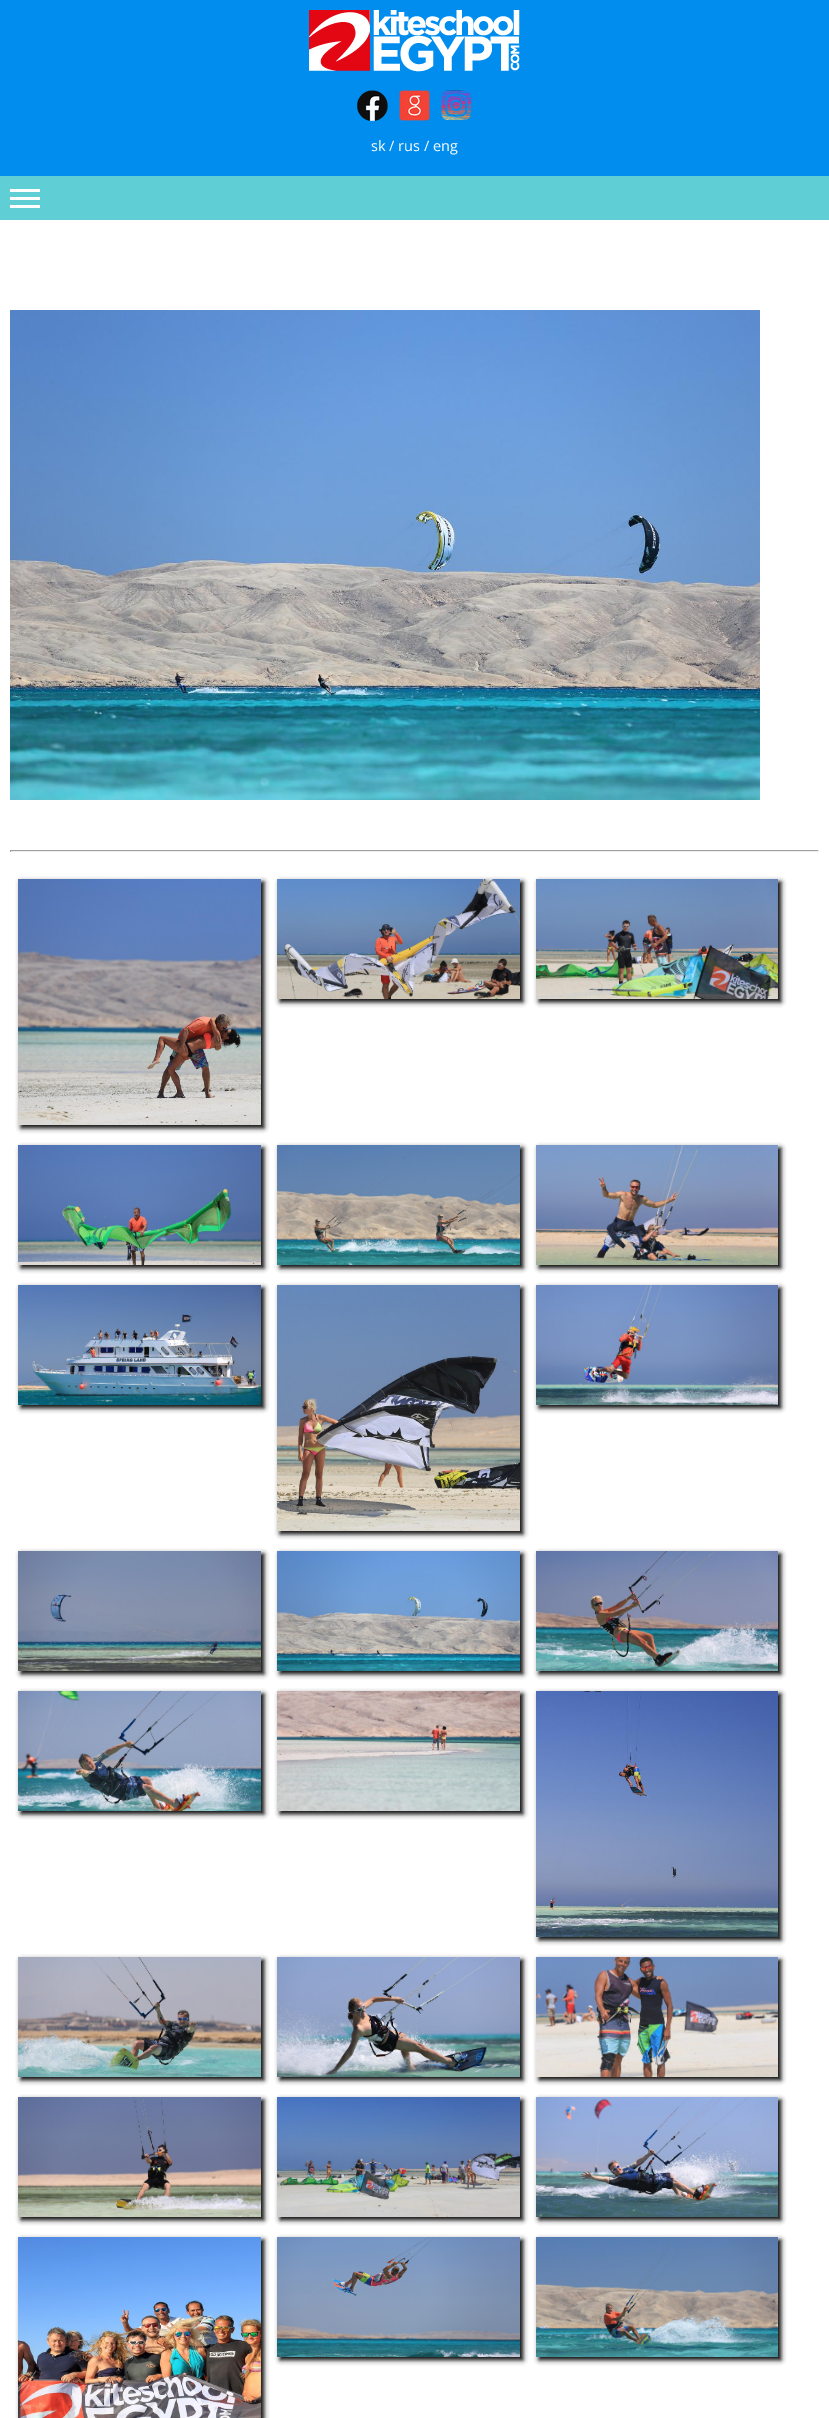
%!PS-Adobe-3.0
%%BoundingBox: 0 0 829 2418
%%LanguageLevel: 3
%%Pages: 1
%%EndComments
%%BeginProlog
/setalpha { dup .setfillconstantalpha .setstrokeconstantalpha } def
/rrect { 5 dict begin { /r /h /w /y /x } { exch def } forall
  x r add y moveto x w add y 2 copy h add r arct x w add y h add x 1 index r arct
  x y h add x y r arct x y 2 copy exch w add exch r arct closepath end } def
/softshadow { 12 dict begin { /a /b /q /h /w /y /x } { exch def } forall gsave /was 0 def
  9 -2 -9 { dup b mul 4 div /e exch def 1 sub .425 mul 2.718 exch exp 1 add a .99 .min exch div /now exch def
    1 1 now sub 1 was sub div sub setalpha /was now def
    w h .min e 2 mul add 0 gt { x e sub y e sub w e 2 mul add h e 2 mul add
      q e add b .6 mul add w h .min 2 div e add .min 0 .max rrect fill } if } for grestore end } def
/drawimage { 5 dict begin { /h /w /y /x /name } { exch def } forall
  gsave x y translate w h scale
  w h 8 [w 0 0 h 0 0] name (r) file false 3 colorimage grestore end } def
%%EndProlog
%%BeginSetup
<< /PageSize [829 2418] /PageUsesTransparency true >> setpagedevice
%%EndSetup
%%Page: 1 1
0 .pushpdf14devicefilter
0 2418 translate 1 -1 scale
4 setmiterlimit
1 setgray
0 0 829 2418 rectfill
0.004 0.553 0.933 setrgbcolor
0 0 829 176 rectfill
(images/1.raw) 309 10 211 62 drawimage
(images/2.raw) 357 90 31 31 drawimage
(images/3.raw) 399 90 31 31 drawimage
(images/4.raw) 441 90 31 31 drawimage
0.373 0.808 0.835 setrgbcolor
0 176 829 44 rectfill
1 setgray
10 197 30 3 rectfill
10 189 30 3 rectfill
10 205 30 3 rectfill
(images/5.raw) 10 310 750 490 drawimage
0.624 setgray
10 850 809 1 rectfill
0.933 setgray
818 850 1 2 rectfill
10 851 809 1 rectfill
0.624 setgray
10 850 1 2 rectfill
0 setgray
21 882 243 246 0 2.5 1 softshadow
(images/6.raw) 18 879 243 246 drawimage
280 882 243 120 0 2.5 1 softshadow
(images/7.raw) 277 879 243 120 drawimage
539 882 242 120 0 2.5 1 softshadow
(images/8.raw) 536 879 242 120 drawimage
21 1148 243 120 0 2.5 1 softshadow
(images/9.raw) 18 1145 243 120 drawimage
280 1148 243 120 0 2.5 1 softshadow
(images/10.raw) 277 1145 243 120 drawimage
539 1148 242 120 0 2.5 1 softshadow
(images/11.raw) 536 1145 242 120 drawimage
21 1288 243 120 0 2.5 1 softshadow
(images/12.raw) 18 1285 243 120 drawimage
280 1288 243 246 0 2.5 1 softshadow
(images/13.raw) 277 1285 243 246 drawimage
539 1288 242 120 0 2.5 1 softshadow
(images/14.raw) 536 1285 242 120 drawimage
21 1554 243 120 0 2.5 1 softshadow
(images/15.raw) 18 1551 243 120 drawimage
280 1554 243 120 0 2.5 1 softshadow
(images/16.raw) 277 1551 243 120 drawimage
539 1554 242 120 0 2.5 1 softshadow
(images/17.raw) 536 1551 242 120 drawimage
21 1694 243 120 0 2.5 1 softshadow
(images/18.raw) 18 1691 243 120 drawimage
280 1694 243 120 0 2.5 1 softshadow
(images/19.raw) 277 1691 243 120 drawimage
539 1694 242 246 0 2.5 1 softshadow
(images/20.raw) 536 1691 242 246 drawimage
21 1960 243 120 0 2.5 1 softshadow
(images/21.raw) 18 1957 243 120 drawimage
280 1960 243 120 0 2.5 1 softshadow
(images/22.raw) 277 1957 243 120 drawimage
539 1960 242 120 0 2.5 1 softshadow
(images/23.raw) 536 1957 242 120 drawimage
21 2100 243 120 0 2.5 1 softshadow
(images/24.raw) 18 2097 243 120 drawimage
280 2100 243 120 0 2.5 1 softshadow
(images/25.raw) 277 2097 243 120 drawimage
539 2100 242 120 0 2.5 1 softshadow
(images/26.raw) 536 2097 242 120 drawimage
21 2240 243 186 0 2.5 1 softshadow
(images/27.raw) 18 2237 243 181 drawimage
280 2240 243 120 0 2.5 1 softshadow
(images/28.raw) 277 2237 243 120 drawimage
539 2240 242 120 0 2.5 1 softshadow
(images/29.raw) 536 2237 242 120 drawimage
/OpenSans-Regular [14.5 0 0 -14.5 0 0] selectfont
1 setgray
371 151 moveto (sk / rus / eng) show
.poppdf14devicefilter showpage
%%EOF
